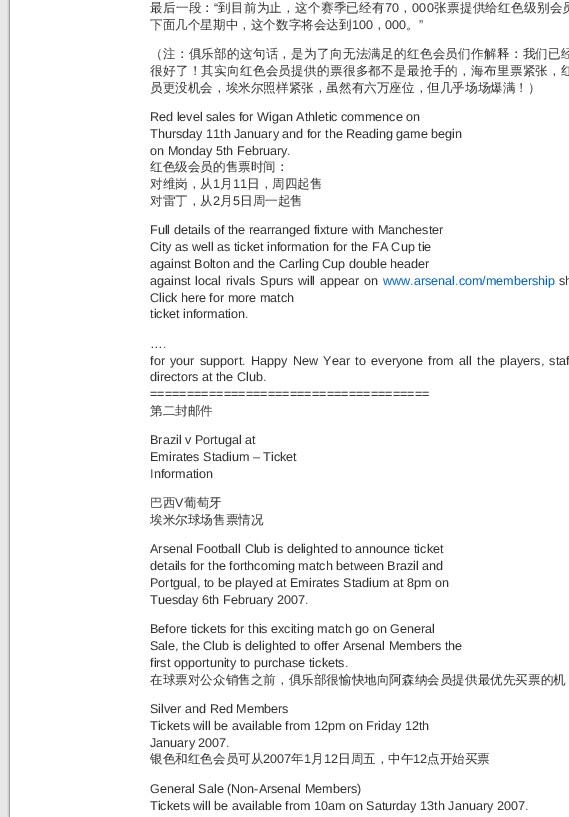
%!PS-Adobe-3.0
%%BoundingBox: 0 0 569 817
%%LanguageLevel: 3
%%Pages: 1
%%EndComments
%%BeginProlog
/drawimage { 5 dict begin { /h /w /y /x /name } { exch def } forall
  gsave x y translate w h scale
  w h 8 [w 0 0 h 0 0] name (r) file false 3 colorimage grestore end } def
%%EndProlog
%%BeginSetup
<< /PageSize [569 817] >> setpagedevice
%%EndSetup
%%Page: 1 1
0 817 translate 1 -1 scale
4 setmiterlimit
0.906 setgray
0 0 569 817 rectfill
(images/1.raw) 7 0 562 817 drawimage
/WenQuanYiZenHei-Medium [12.6 0 0 -12.6 0 0] selectfont
0.2 setgray
150 12 moveto 0.25 0 (最后一段：) ashow
/LiberationSans-Regular [12.6 0 0 -12.6 0 0] selectfont
214 12 moveto 0.25 0 (“) ashow
/WenQuanYiZenHei-Medium [12.6 0 0 -12.6 0 0] selectfont
218 12 moveto 0.25 0 (到目前为止，这个赛季已经有) ashow
/LiberationSans-Regular [12.6 0 0 -12.6 0 0] selectfont
385 12 moveto 0.25 0 (70) ashow
/WenQuanYiZenHei-Medium [12.6 0 0 -12.6 0 0] selectfont
399 12 moveto 0.25 0 (，) ashow
/LiberationSans-Regular [12.6 0 0 -12.6 0 0] selectfont
412 12 moveto 0.25 0 (000) ashow
/WenQuanYiZenHei-Medium [12.6 0 0 -12.6 0 0] selectfont
434 12 moveto 0.25 0 (张票提供给红色级别会员) ashow
150 29 moveto (下面几个星期中，这个数字将会达到) show
/LiberationSans-Regular [12.6 0 0 -12.6 0 0] selectfont
352 29 moveto (100) show
385 29 moveto (000) show
419 29 moveto (”) show
/WenQuanYiZenHei-Medium [12.6 0 0 -12.6 0 0] selectfont
373 29 moveto (，) show
406 29 moveto (。) show
150 58 moveto 0.25 0 (（注：俱乐部的这句话，是为了向无法满足的红色会员们作解释：我们已经) ashow
150 75 moveto 0.25 0 (很好了！其实向红色会员提供的票很多都不是最抢手的，海布里票紧张，红) ashow
150 92 moveto (员更没机会，埃米尔照样紧张，虽然有六万座位，但几乎场场爆满！）) show
/LiberationSans-Regular [12.6 0 0 -12.6 0 0] selectfont
150 121 moveto (Red level sales for Wigan Athletic commence on) show
150 138 moveto (Thursday 11th January and for the Reading game begin) show
150 155 moveto (on Monday 5th February.) show
/WenQuanYiZenHei-Medium [12.6 0 0 -12.6 0 0] selectfont
150 171 moveto (红色级会员的售票时间：) show
150 188 moveto (对维岗，从) show
/LiberationSans-Regular [12.6 0 0 -12.6 0 0] selectfont
213 188 moveto (1) show
/WenQuanYiZenHei-Medium [12.6 0 0 -12.6 0 0] selectfont
220 188 moveto (月) show
/LiberationSans-Regular [12.6 0 0 -12.6 0 0] selectfont
233 188 moveto (11) show
/WenQuanYiZenHei-Medium [12.6 0 0 -12.6 0 0] selectfont
247 188 moveto (日，周四起售) show
150 205 moveto (对雷丁，从) show
/LiberationSans-Regular [12.6 0 0 -12.6 0 0] selectfont
213 205 moveto (2) show
/WenQuanYiZenHei-Medium [12.6 0 0 -12.6 0 0] selectfont
220 205 moveto (月) show
/LiberationSans-Regular [12.6 0 0 -12.6 0 0] selectfont
233 205 moveto (5) show
/WenQuanYiZenHei-Medium [12.6 0 0 -12.6 0 0] selectfont
240 205 moveto (日周一起售) show
/LiberationSans-Regular [12.6 0 0 -12.6 0 0] selectfont
150 234 moveto (Full details of the rearranged fixture with Manchester) show
150 251 moveto (City as well as ticket information for the FA Cup tie) show
150 268 moveto (against Bolton and the Carling Cup double header) show
150 285 moveto 1.25 0 32 (against local rivals Spurs will appear on) widthshow
0 0.4 0.8 setrgbcolor
383 285 moveto (www.arsenal.com/membership) show
0.2 setgray
559 285 moveto (sh) show
150 302 moveto (Click here for more match) show
150 318 moveto (ticket information.) show
150 348 moveto (….) show
150 365 moveto 1.9 0 32 (for your support. Happy New Year to everyone from all the players, staf) widthshow
150 381 moveto (directors at the Club.) show
150 398 moveto (======================================) show
/WenQuanYiZenHei-Medium [12.6 0 0 -12.6 0 0] selectfont
150 415 moveto (第二封邮件) show
/LiberationSans-Regular [12.6 0 0 -12.6 0 0] selectfont
150 444 moveto (Brazil v Portugal at) show
150 461 moveto (Emirates Stadium – Ticket) show
150 478 moveto (Information) show
/WenQuanYiZenHei-Medium [12.6 0 0 -12.6 0 0] selectfont
150 507 moveto (巴西) show
/LiberationSans-Regular [12.6 0 0 -12.6 0 0] selectfont
175 507 moveto (V) show
/WenQuanYiZenHei-Medium [12.6 0 0 -12.6 0 0] selectfont
184 507 moveto (葡萄牙) show
150 524 moveto (埃米尔球场售票情况) show
/LiberationSans-Regular [12.6 0 0 -12.6 0 0] selectfont
150 553 moveto (Arsenal Football Club is delighted to announce ticket) show
150 570 moveto (details for the forthcoming match between Brazil and) show
150 587 moveto (Portgual, to be played at Emirates Stadium at 8pm on) show
150 604 moveto (Tuesday 6th February 2007.) show
150 633 moveto (Before tickets for this exciting match go on General) show
150 650 moveto (Sale, the Club is delighted to offer Arsenal Members the) show
150 667 moveto (first opportunity to purchase tickets.) show
/WenQuanYiZenHei-Medium [12.6 0 0 -12.6 0 0] selectfont
150 684 moveto (在球票对公众销售之前，俱乐部很愉快地向阿森纳会员提供最优先买票的机) show
/LiberationSans-Regular [12.6 0 0 -12.6 0 0] selectfont
150 713 moveto (Silver and Red Members) show
150 730 moveto (Tickets will be available from 12pm on Friday 12th) show
150 747 moveto (January 2007.) show
/WenQuanYiZenHei-Medium [12.6 0 0 -12.6 0 0] selectfont
150 763 moveto (银色和红色会员可从) show
/LiberationSans-Regular [12.6 0 0 -12.6 0 0] selectfont
263 763 moveto (2007) show
/WenQuanYiZenHei-Medium [12.6 0 0 -12.6 0 0] selectfont
291 763 moveto (年) show
/LiberationSans-Regular [12.6 0 0 -12.6 0 0] selectfont
304 763 moveto (1) show
/WenQuanYiZenHei-Medium [12.6 0 0 -12.6 0 0] selectfont
311 763 moveto (月) show
/LiberationSans-Regular [12.6 0 0 -12.6 0 0] selectfont
324 763 moveto (12) show
/WenQuanYiZenHei-Medium [12.6 0 0 -12.6 0 0] selectfont
338 763 moveto (日周五，中午) show
/LiberationSans-Regular [12.6 0 0 -12.6 0 0] selectfont
413 763 moveto (12) show
/WenQuanYiZenHei-Medium [12.6 0 0 -12.6 0 0] selectfont
427 763 moveto (点开始买票) show
/LiberationSans-Regular [12.6 0 0 -12.6 0 0] selectfont
150 793 moveto (General Sale \(Non-Arsenal Members\)) show
150 810 moveto (Tickets will be available from 10am on Saturday 13th January 2007.) show
showpage
%%EOF
